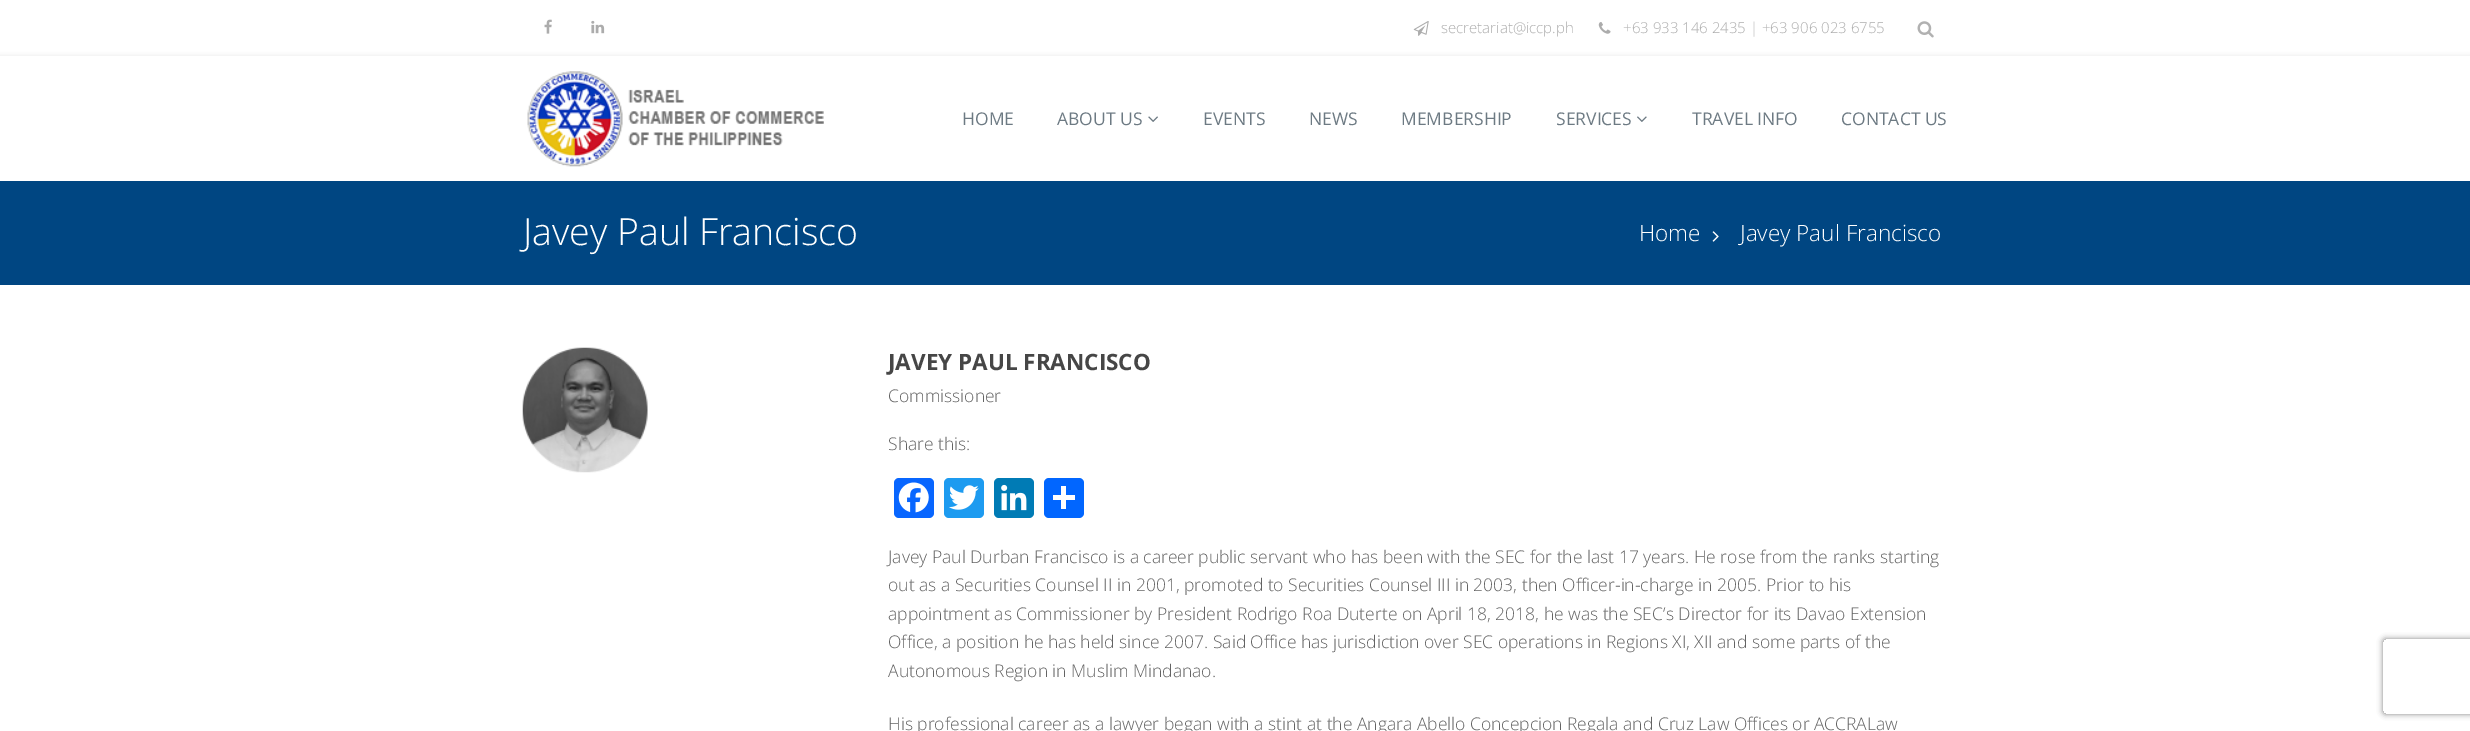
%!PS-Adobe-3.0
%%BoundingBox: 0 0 2470 731
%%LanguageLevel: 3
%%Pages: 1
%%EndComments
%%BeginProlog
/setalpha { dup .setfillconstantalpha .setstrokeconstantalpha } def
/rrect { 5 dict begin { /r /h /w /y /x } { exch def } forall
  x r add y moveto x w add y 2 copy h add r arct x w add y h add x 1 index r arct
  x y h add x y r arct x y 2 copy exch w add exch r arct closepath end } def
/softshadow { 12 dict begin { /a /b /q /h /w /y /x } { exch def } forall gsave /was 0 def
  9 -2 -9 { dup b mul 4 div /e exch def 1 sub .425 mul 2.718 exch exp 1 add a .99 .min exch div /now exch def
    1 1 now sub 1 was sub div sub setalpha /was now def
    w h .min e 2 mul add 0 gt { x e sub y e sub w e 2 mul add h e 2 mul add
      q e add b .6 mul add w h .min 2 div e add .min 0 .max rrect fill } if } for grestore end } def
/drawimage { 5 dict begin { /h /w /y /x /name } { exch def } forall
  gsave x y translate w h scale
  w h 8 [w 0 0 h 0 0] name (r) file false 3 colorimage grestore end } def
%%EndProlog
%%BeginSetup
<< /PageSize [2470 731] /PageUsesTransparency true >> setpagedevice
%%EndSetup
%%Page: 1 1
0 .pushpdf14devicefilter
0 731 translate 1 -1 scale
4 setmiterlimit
1 setgray
0 0 2470 731 rectfill
(images/1.raw) 544 19 8 15 drawimage
(images/2.raw) 591 20 14 14 drawimage
(images/3.raw) 1413 21 16 15 drawimage
(images/4.raw) 1598 22 13 12 drawimage
(images/5.raw) 1917 21 17 17 drawimage
0.075 0.071 0.071 setrgbcolor
0 58 2470 125 0 3 0.2 softshadow
1 setgray
0 56 2470 125 rectfill
(images/6.raw) 527 71 297 96 drawimage
(images/7.raw) 1148 116 10 6 drawimage
(images/8.raw) 1637 116 10 6 drawimage
0 0.275 0.51 setrgbcolor
0 181 2470 104 rectfill
(images/9.raw) 1712 231 7 11 drawimage
(images/10.raw) 522 347 126 126 drawimage
0.031 0.4 1 setrgbcolor
894 478 40 40 5 rrect fill
(images/11.raw) 898 482 31 31 drawimage
0.114 0.608 0.941 setrgbcolor
944 478 40 40 5 rrect fill
(images/12.raw) 949 485 30 25 drawimage
0 0.482 0.71 setrgbcolor
994 478 40 40 5 rrect fill
(images/13.raw) 1001 484 26 27 drawimage
0.004 0.4 1 setrgbcolor
1044 478 40 40 5 rrect fill
1 setgray
1061 486 5 23 rectfill
1053 495 22 5 rectfill
gsave
newpath 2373 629 moveto 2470 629 lineto 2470 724 lineto 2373 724 lineto closepath 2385.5 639 moveto 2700.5 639 lineto 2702 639 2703 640 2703 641.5 curveto 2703 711.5 lineto 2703 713 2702 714 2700.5 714 curveto 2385.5 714 lineto 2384 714 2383 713 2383 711.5 curveto 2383 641.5 lineto 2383 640 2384 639 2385.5 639 curveto closepath eoclip newpath
0.502 setgray
2383 639 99 75 2.5 3 1 softshadow
grestore
/OpenSans-Light [15 0 0 -15 0 0] selectfont
0.675 setgray
1441 33 moveto (secretariat@iccp.ph) show
1623 33 moveto (+63 933 146 2435 | +63 906 023 6755) show
/OpenSans-Regular [17.5 0 0 -17.5 0 0] selectfont
0.427 0.478 0.514 setrgbcolor
962 125 moveto (HOME) show
1057 125 moveto (ABOUT US) show
1203 125 moveto (EVENTS) show
1309 125 moveto (NEWS) show
1401 125 moveto (MEMBERSHIP) show
1556 125 moveto (SERVICES) show
1692 125 moveto (TRAVEL INFO) show
1841 125 moveto (CONTACT US) show
/OpenSans-Light [37.5 0 0 -37.5 0 0] selectfont
1 setgray
523 245 moveto (Javey Paul Francisco) show
/OpenSans-Light [22.5 0 0 -22.5 0 0] selectfont
1639 241 moveto (Home) show
1740 241 moveto (Javey Paul Francisco) show
/OpenSans-Bold [22.5 0 0 -22.5 0 0] selectfont
0.275 setgray
888 370 moveto (JAVEY PAUL FRANCISCO) show
/OpenSans-Light [17.5 0 0 -17.5 0 0] selectfont
0.388 setgray
888 402 moveto (Commissioner) show
888 450 moveto (Share this:) show
888 563 moveto (Javey Paul Durban Francisco is a career public servant who has been with the SEC for the last 17 years. He rose from the ranks starting) show
888 591 moveto (out as a Securities Counsel II in 2001, promoted to Securities Counsel III in 2003, then Officer-in-charge in 2005. Prior to his) show
888 620 moveto (appointment as Commissioner by President Rodrigo Roa Duterte on April 18, 2018, he was the SEC’s Director for its Davao Extension) show
888 648 moveto (Office, a position he has held since 2007. Said Office has jurisdiction over SEC operations in Regions XI, XII and some parts of the) show
888 677 moveto (Autonomous Region in Muslim Mindanao.) show
888 730 moveto (His professional career as a lawyer began with a stint at the Angara Abello Concepcion Regala and Cruz Law Offices or ACCRALaw) show
.poppdf14devicefilter showpage
%%EOF
